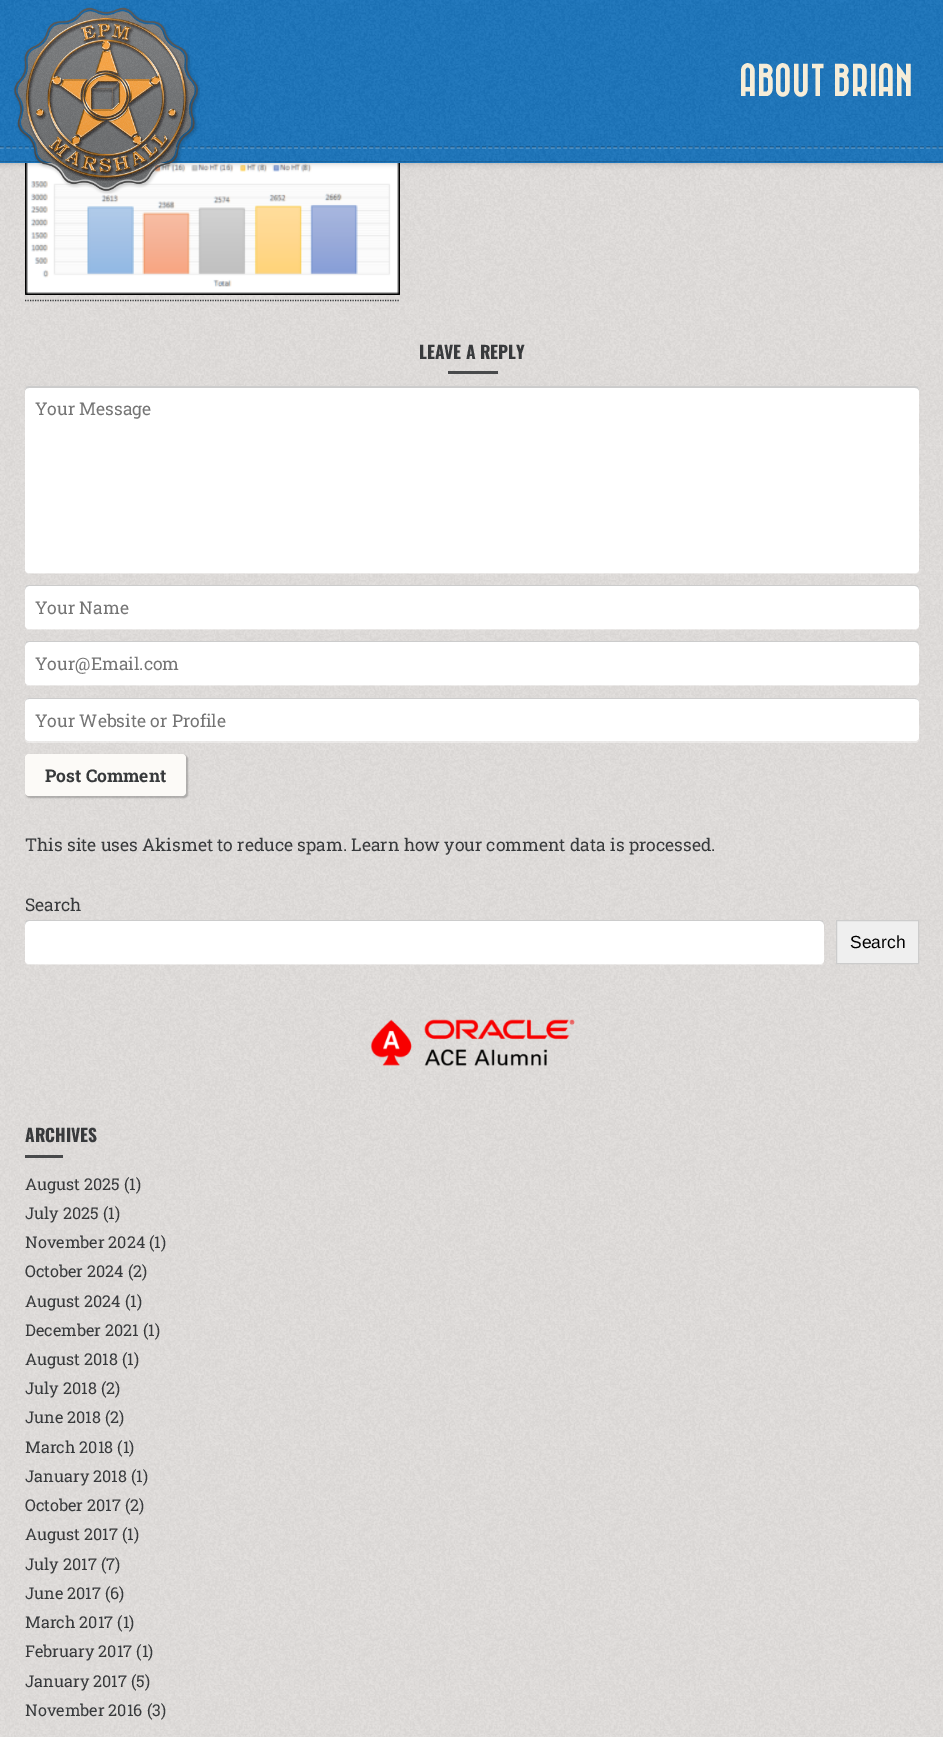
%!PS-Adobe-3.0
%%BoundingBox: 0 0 943 1737
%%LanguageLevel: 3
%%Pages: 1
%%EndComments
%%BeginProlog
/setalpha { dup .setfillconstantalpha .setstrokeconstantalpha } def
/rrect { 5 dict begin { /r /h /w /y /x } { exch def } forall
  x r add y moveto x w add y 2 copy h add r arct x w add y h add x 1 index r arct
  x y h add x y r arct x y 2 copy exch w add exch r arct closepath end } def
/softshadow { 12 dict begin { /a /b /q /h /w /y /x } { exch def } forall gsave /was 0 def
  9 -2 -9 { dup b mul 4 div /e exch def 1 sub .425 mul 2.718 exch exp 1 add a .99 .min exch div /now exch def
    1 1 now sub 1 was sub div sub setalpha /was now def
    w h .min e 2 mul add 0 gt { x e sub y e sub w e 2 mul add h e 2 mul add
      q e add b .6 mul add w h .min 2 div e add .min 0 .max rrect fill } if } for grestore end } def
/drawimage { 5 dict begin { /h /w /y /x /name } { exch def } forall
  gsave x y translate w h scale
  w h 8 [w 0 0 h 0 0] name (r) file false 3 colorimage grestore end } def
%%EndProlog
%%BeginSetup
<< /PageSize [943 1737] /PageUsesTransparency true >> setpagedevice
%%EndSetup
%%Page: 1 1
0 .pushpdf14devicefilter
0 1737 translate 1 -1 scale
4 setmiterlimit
0.89 0.878 0.867 setrgbcolor
0 0 943 1737 rectfill
(images/3.raw) 0 163 943 1574 drawimage
(images/4.raw) 25 163 375 132 drawimage
0 setgray
0 0 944 163 0 3 0.25 softshadow
0.106 0.459 0.737 setrgbcolor
0 0 943 163 rectfill
(images/1.raw) 0 0 943 163 drawimage
0.15 setalpha
0 setgray
0 161 943 1 rectfill
0.25 setalpha
1.2 setlinewidth
[3.75 2.51] 0 setdash
newpath 0 147 moveto 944 147 lineto stroke
1 setgray
newpath 0 148 moveto 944 148 lineto stroke
1 setalpha
(images/2.raw) 13 7 187 187 drawimage
0.22 0.227 0.235 setrgbcolor
[1.25 1.25] 0 setdash
newpath 25 300.5 moveto 400 300.5 lineto stroke
0.9 setalpha
448 371 50 3 rectfill
0.4 setalpha
1 setgray
newpath 25 569 moveto 25 570 lineto 25 572 27 574 29 574 curveto 915 574 lineto 917 574 919 572 919 570 curveto 919 391 lineto 919 569 lineto 919 571 917 572 915 572 curveto 29 572 lineto 27 572 25 571 25 569 curveto closepath fill
1 setalpha
25 386 894 187 4 rrect fill
0.2 setalpha
0 setgray
newpath 29 388 moveto 915 388 lineto 917 388 919 389 919 391 curveto 919 388 918 386 915 386 curveto 29 386 lineto 26 386 25 388 25 391 curveto 25 389 27 388 29 388 curveto closepath fill
0.4 setalpha
1 setgray
newpath 25 625 moveto 26 628 lineto 27 630 lineto 915 630 lineto 920 630 919 623 919 620 curveto 919 589 lineto 919 625 lineto 919 627 917 629 915 629 curveto 29 629 lineto 27 629 25 627 25 625 curveto closepath fill
1 setalpha
25 585 894 44 4 rrect fill
0.2 setalpha
0 setgray
newpath 29 586 moveto 915 586 lineto 917 586 919 588 919 590 curveto 919 587 918 585 915 585 curveto 29 585 lineto 26 585 25 587 25 590 curveto 25 588 27 586 29 586 curveto closepath fill
0.4 setalpha
1 setgray
newpath 25 681 moveto 26 684 lineto 27 686 lineto 915 686 lineto 920 686 919 679 919 676 curveto 919 646 lineto 919 681 lineto 919 683 917 685 915 685 curveto 29 685 lineto 27 685 25 683 25 681 curveto closepath fill
1 setalpha
25 641 894 44 4 rrect fill
0.2 setalpha
0 setgray
newpath 29 642 moveto 915 642 lineto 917 642 919 644 919 646 curveto 919 643 918 641 915 641 curveto 29 641 lineto 26 641 25 643 25 646 curveto 25 644 27 642 29 642 curveto closepath fill
0.4 setalpha
1 setgray
newpath 25 738 moveto 25 739 lineto 25 741 27 743 29 743 curveto 915 743 lineto 917 743 919 741 919 739 curveto 919 702 lineto 919 738 lineto 919 740 917 741 915 741 curveto 29 741 lineto 27 741 25 740 25 738 curveto closepath fill
1 setalpha
25 698 894 43 4 rrect fill
0.2 setalpha
0 setgray
newpath 29 699 moveto 915 699 lineto 917 699 919 700 919 702 curveto 919 700 917 698 915 698 curveto 29 698 lineto 27 698 25 700 25 702 curveto 25 700 27 699 29 699 curveto closepath fill
1 setalpha
26 755 162 43 4 0.5 0.2 softshadow
0.988 0.98 0.969 setrgbcolor
25 754 161 42 4 rrect fill
0.4 setalpha
1 setgray
newpath 25 960 moveto 25 963 26 965 29 965 curveto 820 965 lineto 825 965 824 958 824 955 curveto 824 924 lineto 824 960 lineto 824 962 822 964 820 964 curveto 29 964 lineto 27 964 25 962 25 960 curveto closepath fill
1 setalpha
25 920 799 44 4 rrect fill
0.2 setalpha
0 setgray
newpath 29 921 moveto 820 921 lineto 822 921 824 923 824 925 curveto 824 922 823 920 820 920 curveto 29 920 lineto 26 920 25 922 25 925 curveto 25 923 27 921 29 921 curveto closepath fill
1 setalpha
0.937 setgray
newpath 836.5 920.5 moveto 918.5 920.5 lineto 918.5 963.5 lineto 836.5 963.5 lineto closepath gsave fill grestore
0.8 setgray
1 setlinewidth
[] 0 setdash
stroke
(images/5.raw) 371 1019 204 47 drawimage
0.9 setalpha
0.22 0.227 0.235 setrgbcolor
25 1155 38 3 rectfill
/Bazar-Medium [33.75 0 0 -33.75 0 0] selectfont
1 setalpha
0.965 0.929 0.847 setrgbcolor
739 90 moveto (ABOUT BRIAN) show
/Oswald-Bold [17.5 0 0 -17.5 0 0] selectfont
0.22 0.227 0.235 setrgbcolor
419 359 moveto (LEAVE A REPLY) show
/RobotoSlab-Regular [17.5 0 0 -17.5 0 0] selectfont
0.459 setgray
35 415 moveto (Your Message) show
35 614 moveto (Your Name) show
35 670 moveto (Your@Email.com) show
35 727 moveto (Your Website or Profile) show
/RobotoSlab-Bold [17.5 0 0 -17.5 0 0] selectfont
0.22 0.227 0.235 setrgbcolor
45 782 moveto (Post Comment) show
/RobotoSlab-Regular [17.5 0 0 -17.5 0 0] selectfont
25 851 moveto (This site uses Akismet to reduce spam. Learn how your comment data is processed.) show
25 911 moveto (Search) show
/LiberationSans-Regular [17.5 0 0 -17.5 0 0] selectfont
0 setgray
850 948 moveto (Search) show
/Oswald-Bold [17.5 0 0 -17.5 0 0] selectfont
0.22 0.227 0.235 setrgbcolor
25 1142 moveto (ARCHIVES) show
/RobotoSlab-Regular [16.25 0 0 -16.25 0 0] selectfont
25 1190 moveto (August 2025 \(1\)) show
25 1219 moveto (July 2025 \(1\)) show
25 1248 moveto (November 2024 \(1\)) show
25 1277 moveto (October 2024 \(2\)) show
25 1307 moveto (August 2024 \(1\)) show
25 1336 moveto (December 2021 \(1\)) show
25 1365 moveto (August 2018 \(1\)) show
25 1394 moveto (July 2018 \(2\)) show
25 1423 moveto (June 2018 \(2\)) show
25 1453 moveto (March 2018 \(1\)) show
25 1482 moveto (January 2018 \(1\)) show
25 1511 moveto (October 2017 \(2\)) show
25 1540 moveto (August 2017 \(1\)) show
25 1570 moveto (July 2017 \(7\)) show
25 1599 moveto (June 2017 \(6\)) show
25 1628 moveto (March 2017 \(1\)) show
25 1657 moveto (February 2017 \(1\)) show
25 1687 moveto (January 2017 \(5\)) show
25 1716 moveto (November 2016 \(3\)) show
.poppdf14devicefilter showpage
%%EOF
